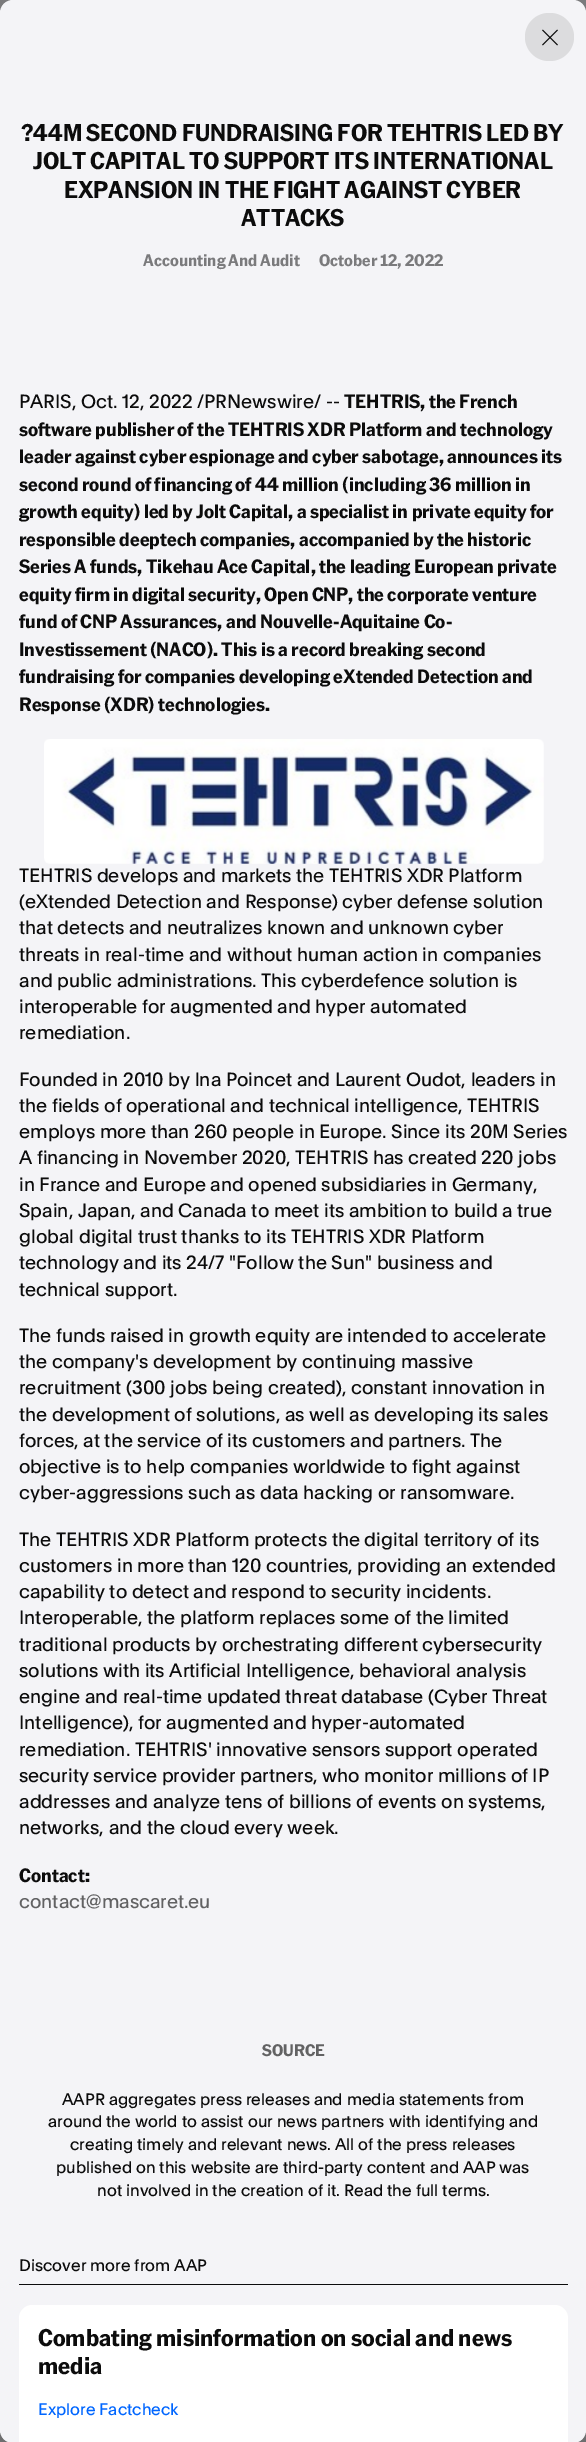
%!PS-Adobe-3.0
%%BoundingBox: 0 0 586 2442
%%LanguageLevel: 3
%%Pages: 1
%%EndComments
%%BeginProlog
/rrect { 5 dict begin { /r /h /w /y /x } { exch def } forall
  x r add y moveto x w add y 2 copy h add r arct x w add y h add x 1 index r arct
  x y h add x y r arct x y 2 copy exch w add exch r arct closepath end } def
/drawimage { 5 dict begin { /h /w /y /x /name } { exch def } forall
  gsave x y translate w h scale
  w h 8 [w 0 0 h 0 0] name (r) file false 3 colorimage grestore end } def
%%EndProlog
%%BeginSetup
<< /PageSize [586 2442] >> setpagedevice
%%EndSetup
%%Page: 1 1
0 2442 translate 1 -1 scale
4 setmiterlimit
0.478 0.478 0.486 setrgbcolor
0 0 586 2442 rectfill
0.431 0.431 0.435 setrgbcolor
0 2430 586 12 rectfill
0.957 0.957 0.969 setrgbcolor
0 0 586 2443 13 rrect fill
0.863 0.863 0.871 setrgbcolor
525 13 49 48 24 rrect fill
0.047 setgray
1 setlinejoin
newpath 557.5 30 moveto 542.5 45 lineto 557.5 45 moveto 542.5 30 lineto stroke
(images/1.raw) 44 739 500 125 drawimage
19 2284 549 1 rectfill
1 setgray
newpath 32 2305 moveto 555 2305 lineto 562 2305 568 2311 568 2318 curveto 568 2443 lineto 19 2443 lineto 19 2318 lineto 19 2311 25 2305 32 2305 curveto closepath fill
/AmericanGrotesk-Bold [23.4 0 0 -23.4 0 0] selectfont
0.047 setgray
21 141 moveto (?44M SECOND FUNDRAISING FOR TEHTRIS LED BY) show
33 169 moveto (JOLT CAPITAL TO SUPPORT ITS INTERNATIONAL) show
64 198 moveto (EXPANSION IN THE FIGHT AGAINST CYBER) show
241 226 moveto (ATTACKS) show
/AmericanGrotesk-Bold [16.25 0 0 -16.25 0 0] selectfont
0.478 0.478 0.486 setrgbcolor
143 266 moveto (Accounting And Audit) show
319 266 moveto (October 12, 2022) show
/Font-Regular [18.75 0 0 -18.75 0 0] selectfont
0.047 setgray
19 408 moveto (PARIS, Oct. 12, 2022 /PRNewswire/ --) show
/AmericanGrotesk-Bold [18.75 0 0 -18.75 0 0] selectfont
344 408 moveto (TEHTRIS, the French) show
19 436 moveto (software publisher of the TEHTRIS XDR Platform and technology) show
19 463 moveto (leader against cyber espionage and cyber sabotage, announces its) show
19 491 moveto (second round of financing of 44 million \(including 36 million in) show
19 518 moveto (growth equity\) led by Jolt Capital, a specialist in private equity for) show
19 546 moveto (responsible deeptech companies, accompanied by the historic) show
19 573 moveto (Series A funds, Tikehau Ace Capital, the leading European private) show
19 601 moveto (equity firm in digital security, Open CNP, the corporate venture) show
19 628 moveto (fund of CNP Assurances, and Nouvelle-Aquitaine Co-) show
19 656 moveto (Investissement \(NACO\). This is a record breaking second) show
19 683 moveto (fundraising for companies developing eXtended Detection and) show
19 711 moveto (Response \(XDR\) technologies.) show
/Font-Regular [18.75 0 0 -18.75 0 0] selectfont
19 882 moveto (TEHTRIS develops and markets the TEHTRIS XDR Platform) show
19 908 moveto (\(eXtended Detection and Response\) cyber defense solution) show
19 934 moveto (that detects and neutralizes known and unknown cyber) show
19 961 moveto (threats in real-time and without human action in companies) show
19 987 moveto (and public administrations. This cyberdefence solution is) show
19 1013 moveto (interoperable for augmented and hyper automated) show
19 1039 moveto (remediation.) show
19 1086 moveto (Founded in 2010 by lna Poincet and Laurent Oudot, leaders in) show
19 1112 moveto (the fields of operational and technical intelligence, TEHTRIS) show
19 1138 moveto (employs more than 260 people in Europe. Since its 20M Series) show
19 1164 moveto (A financing in November 2020, TEHTRIS has created 220 jobs) show
19 1191 moveto (in France and Europe and opened subsidiaries in Germany,) show
19 1217 moveto (Spain, Japan, and Canada to meet its ambition to build a true) show
19 1243 moveto (global digital trust thanks to its TEHTRIS XDR Platform) show
19 1269 moveto (technology and its 24/7 "Follow the Sun" business and) show
19 1296 moveto (technical support.) show
19 1342 moveto (The funds raised in growth equity are intended to accelerate) show
19 1368 moveto (the company's development by continuing massive) show
19 1394 moveto (recruitment \(300 jobs being created\), constant innovation in) show
19 1421 moveto (the development of solutions, as well as developing its sales) show
19 1447 moveto (forces, at the service of its customers and partners. The) show
19 1473 moveto (objective is to help companies worldwide to fight against) show
19 1499 moveto (cyber-aggressions such as data hacking or ransomware.) show
19 1546 moveto (The TEHTRIS XDR Platform protects the digital territory of its) show
19 1572 moveto (customers in more than 120 countries, providing an extended) show
19 1598 moveto (capability to detect and respond to security incidents.) show
19 1624 moveto (Interoperable, the platform replaces some of the limited) show
19 1651 moveto (traditional products by orchestrating different cybersecurity) show
19 1677 moveto (solutions with its Artificial Intelligence, behavioral analysis) show
19 1703 moveto (engine and real-time updated threat database \(Cyber Threat) show
19 1729 moveto (Intelligence\), for augmented and hyper-automated) show
19 1756 moveto (remediation. TEHTRIS' innovative sensors support operated) show
19 1782 moveto (security service provider partners, who monitor millions of IP) show
19 1808 moveto (addresses and analyze tens of billions of events on systems,) show
19 1834 moveto (networks, and the cloud every week.) show
/AmericanGrotesk-Bold [18.75 0 0 -18.75 0 0] selectfont
19 1882 moveto (Contact:) show
/Font-Regular [18.75 0 0 -18.75 0 0] selectfont
0.384 0.384 0.388 setrgbcolor
19 1908 moveto (contact@mascaret.eu) show
/AmericanGrotesk-Bold [16.25 0 0 -16.25 0 0] selectfont
262 2056 moveto (SOURCE) show
/Font-Regular [16.25 0 0 -16.25 0 0] selectfont
0.047 setgray
62 2105 moveto (AAPR aggregates press releases and media statements from) show
48 2127 moveto (around the world to assist our news partners with identifying and) show
70 2150 moveto (creating timely and relevant news. All of the press releases) show
56 2173 moveto (published on this website are third-party content and AAP was) show
97 2196 moveto (not involved in the creation of it. Read the full terms.) show
19 2271 moveto (Discover more from AAP) show
/AmericanGrotesk-Bold [23.4 0 0 -23.4 0 0] selectfont
38 2346 moveto (Combating misinformation on social and news) show
38 2374 moveto (media) show
/Font-Regular [16.25 0 0 -16.25 0 0] selectfont
0 0.4 1 setrgbcolor
38 2415 moveto (Explore Factcheck) show
showpage
%%EOF
